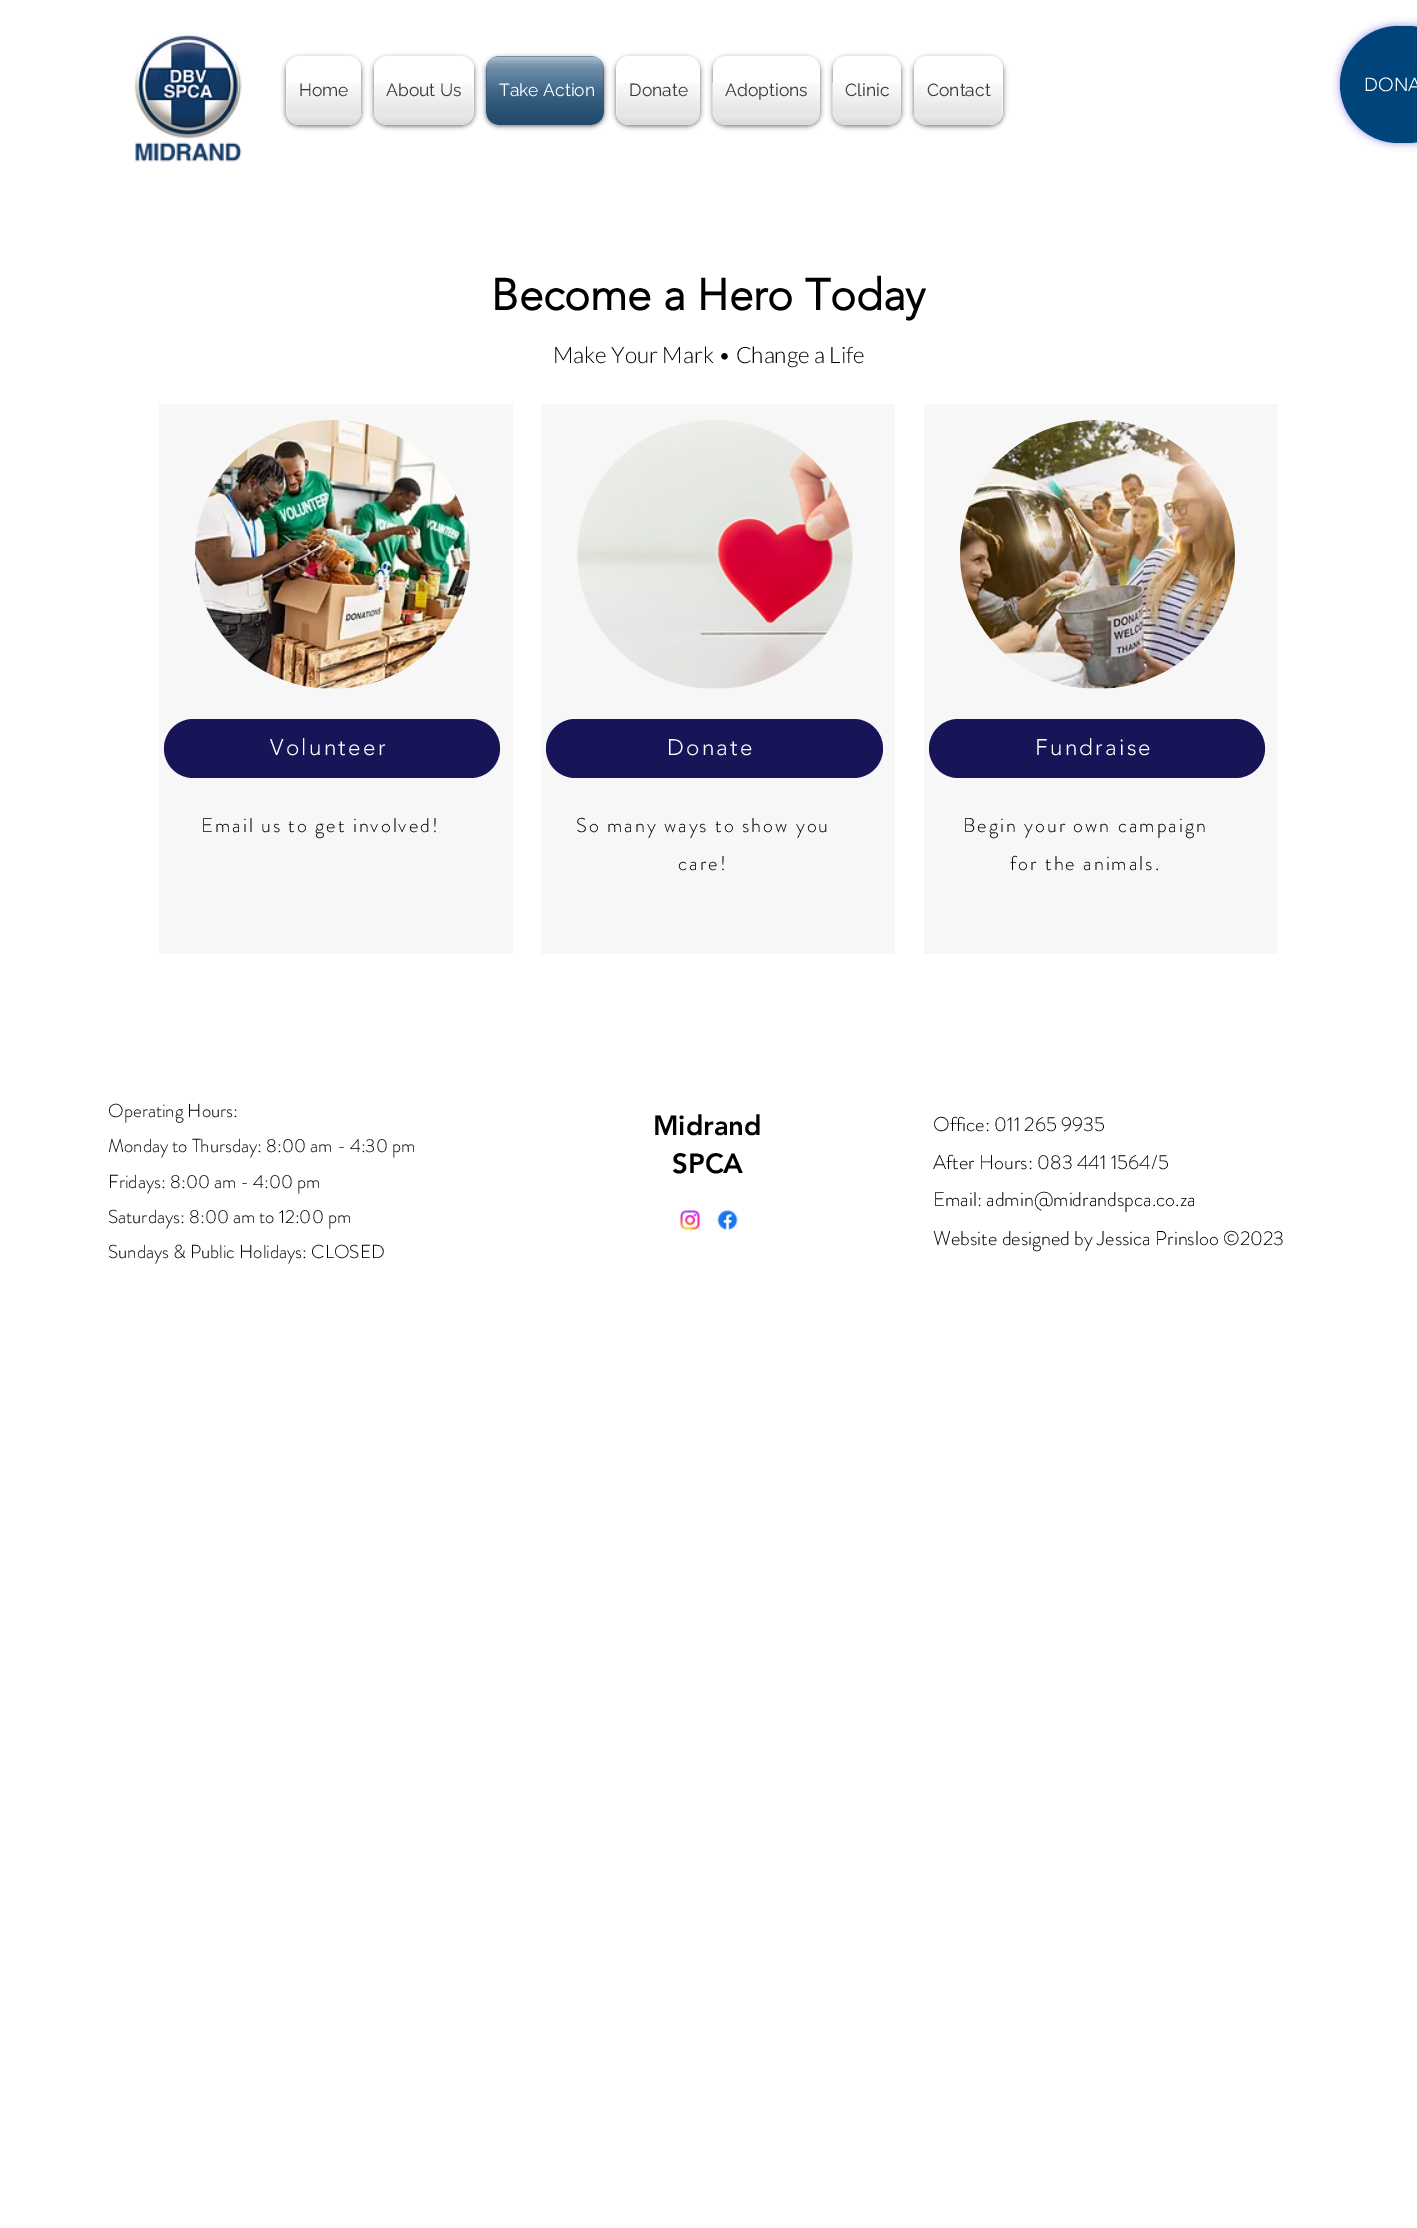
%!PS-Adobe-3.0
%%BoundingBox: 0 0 1417 2228
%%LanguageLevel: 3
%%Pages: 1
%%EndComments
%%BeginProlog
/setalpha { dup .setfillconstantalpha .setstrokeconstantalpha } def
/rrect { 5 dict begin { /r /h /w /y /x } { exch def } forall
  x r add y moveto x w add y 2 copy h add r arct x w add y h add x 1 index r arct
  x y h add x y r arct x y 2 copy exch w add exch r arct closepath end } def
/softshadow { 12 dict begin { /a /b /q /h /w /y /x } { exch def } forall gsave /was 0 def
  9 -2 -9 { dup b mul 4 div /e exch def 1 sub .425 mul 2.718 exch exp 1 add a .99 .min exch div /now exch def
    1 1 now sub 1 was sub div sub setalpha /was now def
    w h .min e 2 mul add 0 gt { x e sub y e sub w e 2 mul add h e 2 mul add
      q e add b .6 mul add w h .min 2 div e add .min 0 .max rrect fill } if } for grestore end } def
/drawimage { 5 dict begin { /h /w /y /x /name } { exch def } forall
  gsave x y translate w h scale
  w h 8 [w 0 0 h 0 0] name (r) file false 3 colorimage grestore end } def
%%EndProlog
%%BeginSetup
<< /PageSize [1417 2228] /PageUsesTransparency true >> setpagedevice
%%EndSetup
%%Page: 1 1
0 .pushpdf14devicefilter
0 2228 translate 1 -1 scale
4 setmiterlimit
1 setgray
0 0 1417 2228 rectfill
(images/1.raw) 134 32 108 130 drawimage
0 setgray
286 58 75 68 13 2.5 0.6 softshadow
1 setgray
286 56 75 69 13 rrect fill
0.925 setgray
356 58 1 1 rectfill
(images/2.raw) 286 83 75 42 drawimage
0 setgray
374 58 100 68 13 2.5 0.6 softshadow
1 setgray
374 56 100 69 13 rrect fill
0.925 setgray
378 58 1 1 rectfill
(images/3.raw) 374 83 100 42 drawimage
0 setgray
486 58 118 68 13 2.5 0.6 softshadow
0.157 0.337 0.486 setrgbcolor
486 56 118 69 13 rrect fill
(images/4.raw) 486 56 118 57 drawimage
(images/5.raw) 486 87 118 38 drawimage
0 setgray
616 58 84 68 13 2.5 0.6 softshadow
1 setgray
616 56 84 69 13 rrect fill
(images/6.raw) 616 83 84 42 drawimage
0 setgray
713 58 107 68 13 2.5 0.6 softshadow
1 setgray
713 56 107 69 13 rrect fill
0.941 setgray
717 58 1 1 rectfill
(images/7.raw) 712 83 108 42 drawimage
0 setgray
833 58 68 68 13 2.5 0.6 softshadow
1 setgray
833 56 68 69 13 rrect fill
(images/8.raw) 837 58 60 1 drawimage
(images/9.raw) 832 83 69 42 drawimage
0 setgray
914 58 89 68 13 2.5 0.6 softshadow
1 setgray
914 56 89 69 13 rrect fill
0.925 setgray
918 58 1 1 rectfill
(images/10.raw) 914 83 89 42 drawimage
0.373 0.357 0.804 setrgbcolor
1340 26 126 117 58.5 4 0.7 softshadow
0 0.267 0.486 setrgbcolor
1340 26 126 117 58.5 rrect fill
0.969 setgray
159 404 354 550 rectfill
(images/11.raw) 195 420 275 269 drawimage
0.09 0.082 0.341 setrgbcolor
164 719 336 59 29.5 rrect fill
0.969 setgray
541 404 354 550 rectfill
(images/12.raw) 577 420 276 269 drawimage
0.09 0.082 0.341 setrgbcolor
546 719 337 59 29.5 rrect fill
0.969 setgray
924 404 354 550 rectfill
(images/13.raw) 960 420 275 269 drawimage
0.09 0.082 0.341 setrgbcolor
929 719 336 59 29.5 rrect fill
(images/14.raw) 679 1209 22 22 drawimage
(images/15.raw) 717 1209 21 22 drawimage
/Raleway-Regular [17.5 0 0 -17.5 0 0] selectfont
0.22 setgray
299 96 moveto (Home) show
386 96 moveto (About Us) show
1 setgray
499 96 moveto (Take Action) show
0.22 setgray
629 96 moveto (Donate) show
725 96 moveto (Adoptions) show
845 96 moveto (Clinic) show
927 96 moveto (Contact) show
/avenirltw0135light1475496-Light [18.75 0 0 -18.75 0 0] selectfont
1 setgray
1364 91 moveto (DONA) show
/avenirltw0135light1475496-Bold [43.75 0 0 -43.75 0 0] selectfont
0 setgray
491 310 moveto (Become a Hero Today) show
/Lato-Light [22.5 0 0 -22.5 0 0] selectfont
553 363 moveto (Make Your Mark • Change a Life) show
/avenirltw0135light1475496-Light [22.5 0 0 -22.5 0 0] selectfont
1 setgray
270 755 moveto 2.25 0 (Volunteer) ashow
/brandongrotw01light-Light [20 0 0 -20 0 0] selectfont
0 setgray
201 832 moveto 2 0 (Email us to get involved!) ashow
/avenirltw0135light1475496-Light [22.5 0 0 -22.5 0 0] selectfont
1 setgray
667 755 moveto 2.25 0 (Donate) ashow
/brandongrotw01light-Light [20 0 0 -20 0 0] selectfont
0 setgray
576 832 moveto 2 0 (So many ways to show you) ashow
678 870 moveto 2 0 (care!) ashow
/avenirltw0135light1475496-Light [22.5 0 0 -22.5 0 0] selectfont
1 setgray
1035 755 moveto 2.25 0 (Fundraise) ashow
/brandongrotw01light-Light [20 0 0 -20 0 0] selectfont
0 setgray
963 832 moveto 2 0 (Begin your own campaign) ashow
1010 870 moveto 2 0 (for the animals.) ashow
/brandongrotw01light-Light [18.75 0 0 -18.75 0 0] selectfont
108 1117 moveto (Operating Hours:) show
108 1152 moveto (Monday to Thursday: 8:00 am - 4:30 pm) show
108 1188 moveto (Fridays: 8:00 am - 4:00 pm) show
108 1223 moveto (Saturdays: 8:00 am to 12:00 pm) show
108 1258 moveto (Sundays & Public Holidays: CLOSED) show
/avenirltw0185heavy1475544-Black [27.5 0 0 -27.5 0 0] selectfont
653 1135 moveto (Midrand) show
672 1173 moveto (SPCA) show
/brandongrotw01light-Light [20 0 0 -20 0 0] selectfont
933 1131 moveto (Office: 011 265 9935) show
933 1169 moveto (After Hours: 083 441 1564/5) show
933 1206 moveto (Email: admin@midrandspca.co.za) show
933 1245 moveto (Website designed by Jessica Prinsloo ©2023) show
.poppdf14devicefilter showpage
%%EOF
